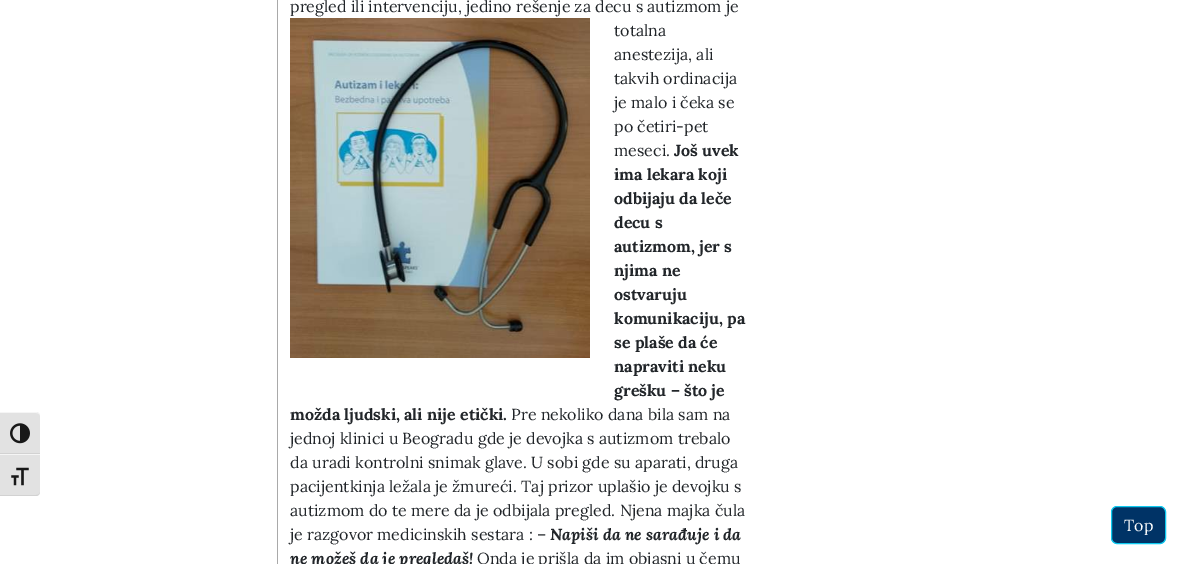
%!PS-Adobe-3.0
%%BoundingBox: 0 0 1196 564
%%LanguageLevel: 3
%%Pages: 1
%%EndComments
%%BeginProlog
/rrect { 5 dict begin { /r /h /w /y /x } { exch def } forall
  x r add y moveto x w add y 2 copy h add r arct x w add y h add x 1 index r arct
  x y h add x y r arct x y 2 copy exch w add exch r arct closepath end } def
/drawimage { 5 dict begin { /h /w /y /x /name } { exch def } forall
  gsave x y translate w h scale
  w h 8 [w 0 0 h 0 0] name (r) file false 3 colorimage grestore end } def
%%EndProlog
%%BeginSetup
<< /PageSize [1196 564] >> setpagedevice
%%EndSetup
%%Page: 1 1
0 564 translate 1 -1 scale
4 setmiterlimit
1 setgray
0 0 1196 564 rectfill
0.886 setgray
newpath 0 412 moveto 36 412 lineto 38 412 40 414 40 416 curveto 40 454 lineto 0 454 lineto closepath fill
0.961 setgray
newpath 0 412 moveto 0 413 lineto 36 413 lineto 38 413 40 414 40 416 curveto 40 414 38 412 36 412 curveto closepath fill
0.824 setgray
0 453 40 1 rectfill
(images/1.raw) 10 423 20 21 drawimage
0.886 setgray
newpath 0 454 moveto 40 454 lineto 40 492 lineto 40 494 38 496 36 496 curveto 0 496 lineto closepath fill
0.961 setgray
0 454 40 1 rectfill
0.824 setgray
newpath 0 495 moveto 0 496 lineto 36 496 lineto 38 496 40 494 40 492 curveto 40 494 38 495 36 495 curveto closepath fill
(images/2.raw) 11 467 18 19 drawimage
0.663 setgray
277 0 1 564 rectfill
(images/3.raw) 290 18 300 340 drawimage
0 0.2 0.4 setrgbcolor
1111.5 506.5 54 37 5.5 rrect gsave fill grestore
0.051 0.792 0.941 setrgbcolor
stroke
/Lora-Regular [16 0 0 -16 0 0] selectfont
0.129 0.145 0.161 setrgbcolor
290 12 moveto (pregled ili intervenciju, jedino rešenje za decu s autizmom je) show
614 36 moveto (totalna) show
614 60 moveto (anestezija, ali) show
614 84 moveto (takvih ordinacija) show
614 108 moveto (je malo i čeka se) show
614 132 moveto (po četiri-pet) show
614 156 moveto (meseci.) show
/Lora-Bold [16 0 0 -16 0 0] selectfont
674 156 moveto (Još uvek) show
614 180 moveto (ima lekara koji) show
614 204 moveto (odbijaju da leče) show
614 228 moveto (decu s) show
614 252 moveto (autizmom, jer s) show
614 276 moveto (njima ne) show
614 300 moveto (ostvaruju) show
614 324 moveto (komunikaciju, pa) show
614 348 moveto (se plaše da će) show
614 372 moveto (napraviti neku) show
614 396 moveto (grešku – što je) show
290 420 moveto (možda ljudski, ali nije etički.) show
/Lora-Regular [16 0 0 -16 0 0] selectfont
511 420 moveto (Pre nekoliko dana bila sam na) show
290 444 moveto (jednoj klinici u Beogradu gde je devojka s autizmom trebalo) show
290 468 moveto (da uradi kontrolni snimak glave. U sobi gde su aparati, druga) show
290 492 moveto (pacijentkinja ležala je žmureći. Taj prizor uplašio je devojku s) show
290 516 moveto (autizmom do te mere da je odbijala pregled. Njena majka čula) show
290 540 moveto (je razgovor medicinskih sestara : –) show
/Lora-BoldItalic [16 0 0 -16 0 0] selectfont
550 540 moveto (Napiši da ne sarađuje i da) show
290 564 moveto (ne možeš da je pregledaš!) show
/Lora-Regular [16 0 0 -16 0 0] selectfont
477 564 moveto (Onda je prišla da im objasni u čemu) show
1 setgray
1124 531 moveto (Top) show
showpage
%%EOF
